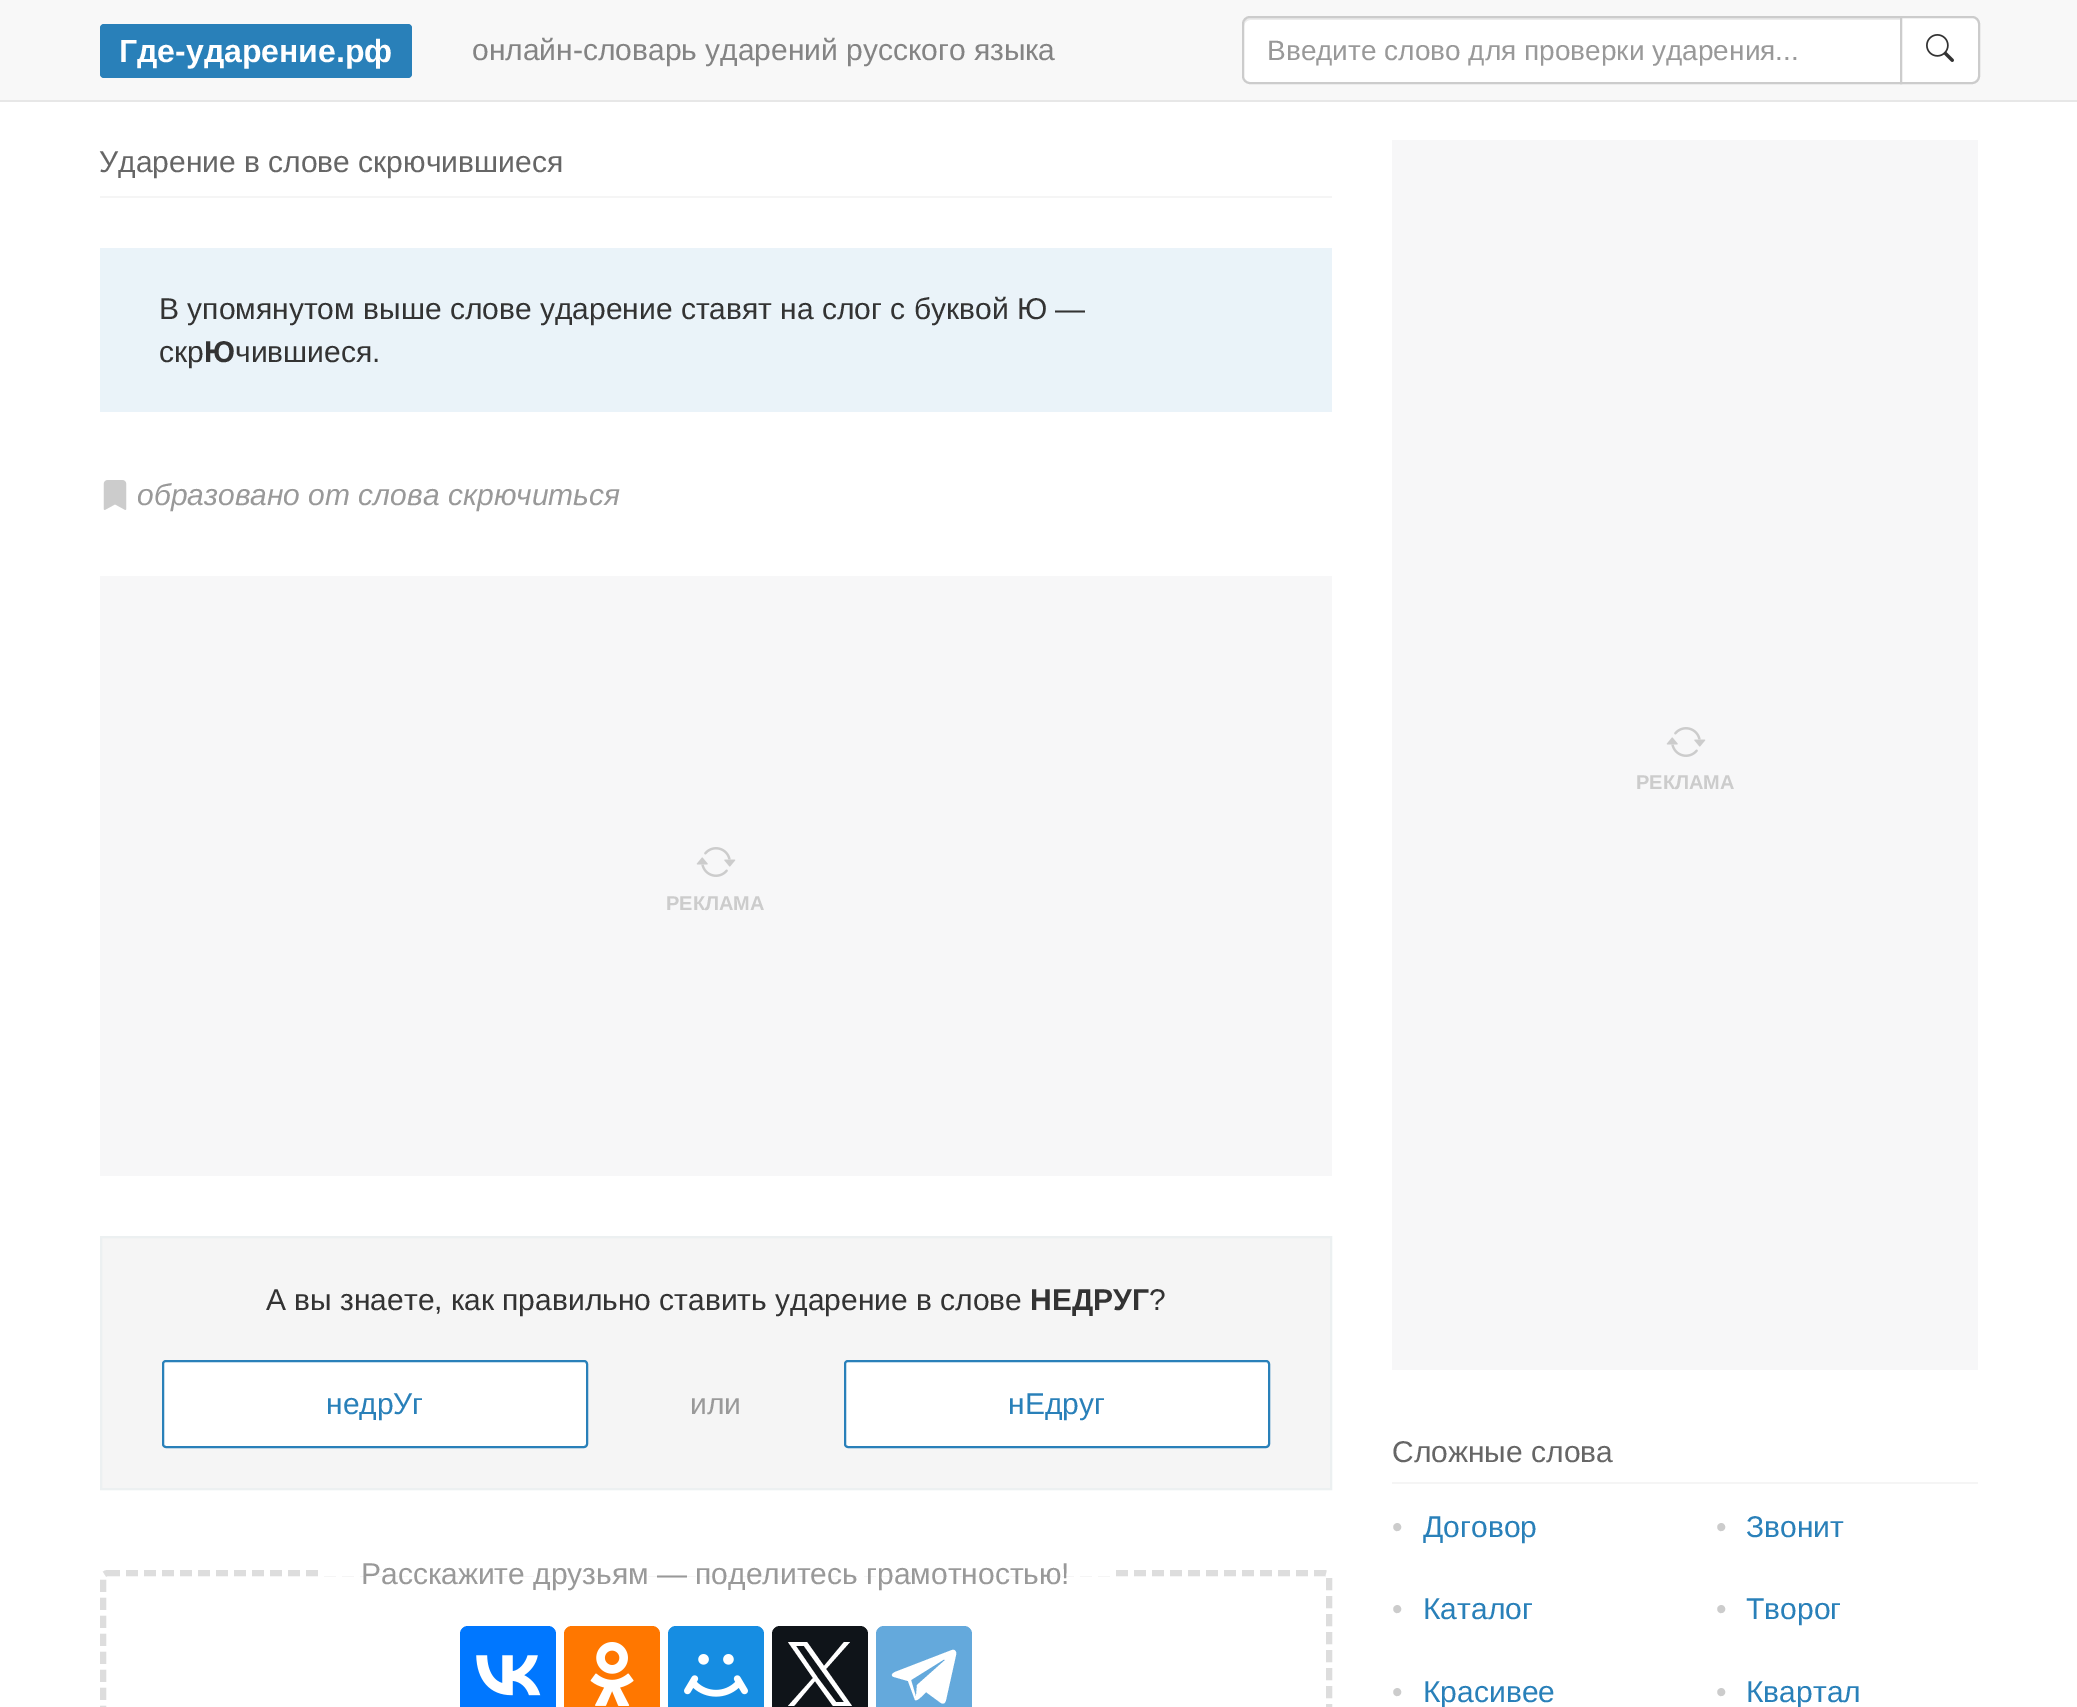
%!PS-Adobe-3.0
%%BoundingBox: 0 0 2077 1707
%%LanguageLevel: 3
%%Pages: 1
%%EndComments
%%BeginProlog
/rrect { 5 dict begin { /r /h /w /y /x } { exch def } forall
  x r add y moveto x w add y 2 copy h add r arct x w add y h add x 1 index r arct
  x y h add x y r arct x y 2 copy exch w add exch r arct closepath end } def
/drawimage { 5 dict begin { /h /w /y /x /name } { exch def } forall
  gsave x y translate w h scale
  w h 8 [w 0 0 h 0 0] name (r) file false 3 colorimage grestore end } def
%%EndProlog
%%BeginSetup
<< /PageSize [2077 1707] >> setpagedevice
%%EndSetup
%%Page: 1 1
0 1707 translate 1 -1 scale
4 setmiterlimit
1 setgray
0 0 2077 1707 rectfill
0.973 setgray
0 0 2077 100 rectfill
0.906 setgray
0 100 2077 2 rectfill
0.161 0.502 0.725 setrgbcolor
100 24 312 54 4 rrect fill
1 setgray
newpath 1250 16 moveto 1902 16 lineto 1902 84 lineto 1250 84 lineto 1245.5 84 1242 80.5 1242 76 curveto 1242 24 lineto 1242 19.5 1245.5 16 1250 16 curveto closepath fill
0.925 setgray
newpath 1250 20 moveto 1900 20 lineto 1900 18 lineto 1250 18 lineto 1245 18 1244 22 1244 26 curveto 1244 23 1247 20 1250 20 curveto closepath fill
0.8 setgray
2 setlinewidth
newpath 1250 17 moveto 1901 17 lineto 1901 83 lineto 1250 83 lineto 1246 83 1243 80 1243 76 curveto 1243 24 lineto 1243 20 1246 17 1250 17 curveto closepath stroke
1 setgray
newpath 1901 17 moveto 1972 17 lineto 1976 17 1979 20 1979 24 curveto 1979 76 lineto 1979 80 1976 83 1972 83 curveto 1901 83 lineto closepath gsave fill grestore
0.8 setgray
stroke
(images/1.raw) 1926 34 28 28 drawimage
0.961 setgray
100 196 1232 2 rectfill
0.918 0.953 0.976 setrgbcolor
100 248 1232 164 rectfill
(images/2.raw) 103 480 24 30 drawimage
0.969 0.969 0.973 setrgbcolor
100 576 1232 600 rectfill
(images/3.raw) 696 847 40 30 drawimage
0.961 setgray
newpath 101 1237 moveto 1331 1237 lineto 1331 1489 lineto 101 1489 lineto closepath gsave fill grestore
0.925 0.941 0.945 setrgbcolor
stroke
1 setgray
163 1361 424 86 3 rrect gsave fill grestore
0.161 0.502 0.725 setrgbcolor
stroke
1 setgray
845 1361 424 86 3 rrect gsave fill grestore
0.161 0.502 0.725 setrgbcolor
stroke
0.867 setgray
6 setlinewidth
[12 6] 0 setdash
newpath 108 1573 moveto 1324 1573 lineto 1327 1573 1329 1575 1329 1578 curveto 1329 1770 lineto 1329 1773 1327 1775 1324 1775 curveto 108 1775 lineto 105 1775 103 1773 103 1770 curveto 103 1578 lineto 103 1575 105 1573 108 1573 curveto closepath stroke
1 setgray
324 1570 786 6 rectfill
0 0.467 1 setrgbcolor
460 1626 96 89 8 rrect fill
(images/4.raw) 476 1655 65 41 drawimage
1 0.467 0 setrgbcolor
564 1626 96 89 8 rrect fill
(images/5.raw) 590 1642 44 64 drawimage
0.086 0.553 0.886 setrgbcolor
668 1626 96 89 8 rrect fill
(images/6.raw) 684 1654 64 43 drawimage
0.059 0.078 0.098 setrgbcolor
772 1626 96 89 8 rrect fill
1 setgray
newpath 826 1669 moveto 850 1642 lineto 844 1642 lineto 824 1666 lineto 807 1642 lineto 788 1642 lineto 813 1678 lineto 788 1706 lineto 794 1706 lineto 815 1681 lineto 833 1706 lineto 852 1706 lineto closepath 818 1678 moveto 796 1646 lineto 804 1646 lineto 844 1702 lineto 836 1702 lineto closepath fill
0.392 0.663 0.863 setrgbcolor
876 1626 96 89 8 rrect fill
1 setgray
newpath 952 1650 moveto 895 1672 lineto 891 1674 891 1676 894 1677 curveto 908 1681 lineto 915 1700 lineto 917 1702 925 1693 926 1692 curveto 941 1703 lineto 943 1704 945 1704 946 1700 curveto 956 1655 lineto 957 1651 954 1649 952 1650 curveto closepath 911 1680 moveto 943 1660 lineto 944 1659 946 1660 944 1661 curveto 917 1685 lineto 916 1697 lineto closepath eofill
0.969 0.969 0.973 setrgbcolor
1392 140 586 1230 rectfill
(images/3.raw) 1666 727 40 30 drawimage
0.961 setgray
1392 1482 586 2 rectfill
/LiberationSans-Bold [32 0 0 -32 0 0] selectfont
1 setgray
119 62 moveto (Где-ударение.рф) show
/LiberationSans-Regular [30 0 0 -30 0 0] selectfont
0.518 setgray
472 60 moveto (онлайн-словарь ударений русского языка) show
/LiberationSans-Regular [28 0 0 -28 0 0] selectfont
0.6 setgray
1267 60 moveto (Введите слово для проверки ударения...) show
/LiberationSans-Regular [30 0 0 -30 0 0] selectfont
0.4 setgray
99 172 moveto (Ударение в слове скрючившиеся) show
0.2 setgray
159 319 moveto (В упомянутом выше слове ударение ставят на слог с буквой Ю —) show
159 362 moveto (скр) show
/LiberationSans-Bold [30 0 0 -30 0 0] selectfont
204 362 moveto (Ю) show
/LiberationSans-Regular [30 0 0 -30 0 0] selectfont
235 362 moveto (чившиеся.) show
/LiberationSans-Italic [30 0 0 -30 0 0] selectfont
0.6 setgray
137 505 moveto (образовано от слова скрючиться) show
/LiberationSans-Bold [20 0 0 -20 0 0] selectfont
0.8 setgray
666 910 moveto (РЕКЛАМА) show
/LiberationSans-Regular [30 0 0 -30 0 0] selectfont
0.2 setgray
266 1310 moveto (А вы знаете, как правильно ставить ударение в слове) show
/LiberationSans-Bold [30 0 0 -30 0 0] selectfont
1030 1310 moveto (НЕДРУГ) show
/LiberationSans-Regular [30 0 0 -30 0 0] selectfont
1149 1310 moveto (?) show
0.161 0.502 0.725 setrgbcolor
326 1414 moveto (недрУг) show
0.6 setgray
690 1414 moveto (или) show
0.161 0.502 0.725 setrgbcolor
1008 1414 moveto (нЕдруг) show
0.6 setgray
361 1584 moveto (Расскажите друзьям — поделитесь грамотностью!) show
/LiberationSans-Bold [20 0 0 -20 0 0] selectfont
0.8 setgray
1636 789 moveto (РЕКЛАМА) show
/LiberationSans-Regular [30 0 0 -30 0 0] selectfont
0.4 setgray
1392 1462 moveto (Сложные слова) show
0.8 setgray
1392 1537 moveto (•) show
0.161 0.502 0.725 setrgbcolor
1423 1537 moveto (Договор) show
0.8 setgray
1716 1537 moveto (•) show
0.161 0.502 0.725 setrgbcolor
1746 1537 moveto (Звонит) show
0.8 setgray
1392 1619 moveto (•) show
0.161 0.502 0.725 setrgbcolor
1423 1619 moveto (Каталог) show
0.8 setgray
1716 1619 moveto (•) show
0.161 0.502 0.725 setrgbcolor
1746 1619 moveto (Творог) show
0.8 setgray
1392 1702 moveto (•) show
0.161 0.502 0.725 setrgbcolor
1423 1702 moveto (Красивее) show
0.8 setgray
1716 1702 moveto (•) show
0.161 0.502 0.725 setrgbcolor
1746 1702 moveto (Квартал) show
showpage
%%EOF
